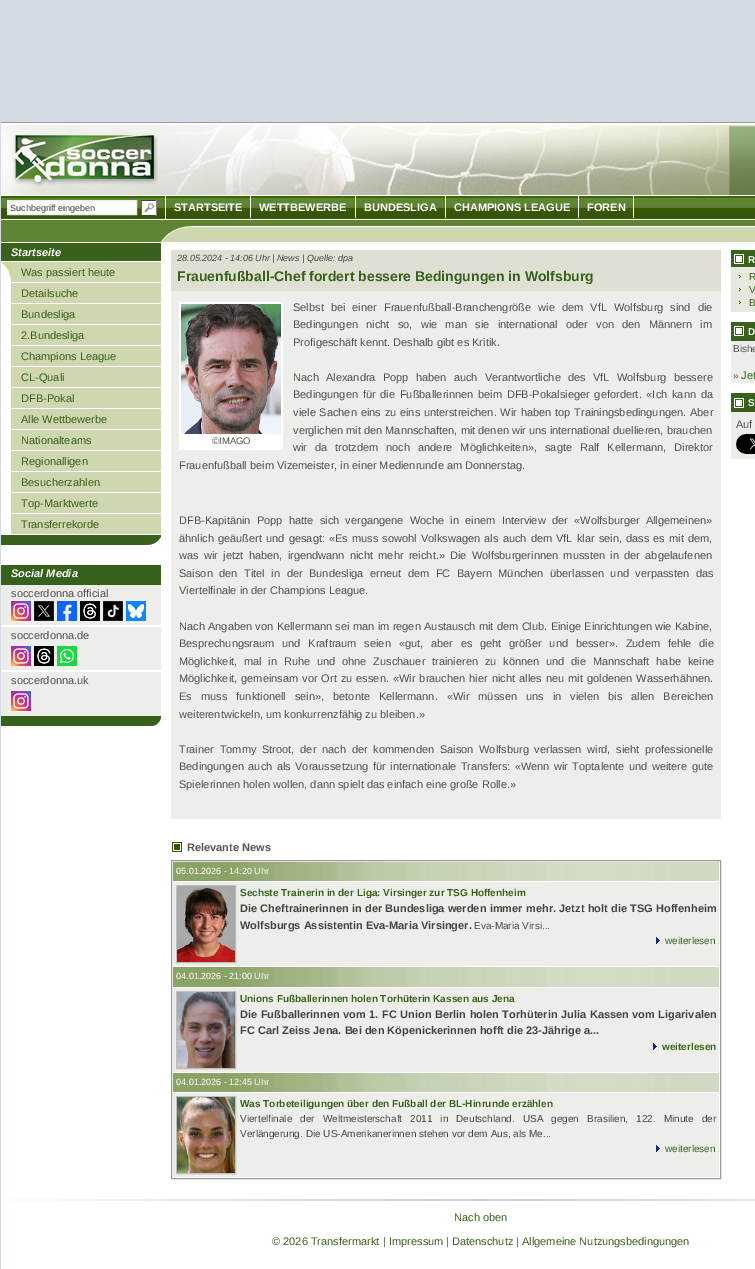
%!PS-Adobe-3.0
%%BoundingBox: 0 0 755 1269
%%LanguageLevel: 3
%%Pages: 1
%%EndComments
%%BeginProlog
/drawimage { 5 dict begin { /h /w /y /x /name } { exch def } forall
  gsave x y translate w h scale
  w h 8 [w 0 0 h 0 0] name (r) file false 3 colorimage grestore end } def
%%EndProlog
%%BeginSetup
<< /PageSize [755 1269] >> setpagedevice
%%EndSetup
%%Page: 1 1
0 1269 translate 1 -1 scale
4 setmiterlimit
0.831 0.855 0.89 setrgbcolor
0 0 755 1269 rectfill
1 setgray
1 123 754 1146 rectfill
(images/1.raw) 1 125 754 70 drawimage
(images/2.raw) 12 135 146 52 drawimage
(images/3.raw) 1 196 754 23 drawimage
165 196 1 23 rectfill
newpath 7.5 200.5 moveto 136.5 200.5 lineto 136.5 214.5 lineto 7.5 214.5 lineto closepath gsave fill grestore
0.929 0.933 0.914 setrgbcolor
stroke
(images/4.raw) 141 200 16 16 drawimage
1 setgray
250 196 1 22 rectfill
355 196 1 22 rectfill
445 196 1 22 rectfill
578 196 1 22 rectfill
633 196 1 22 rectfill
(images/5.raw) 1 220 754 22 drawimage
0.6 setgray
1 122 754 1 rectfill
0.22 0.38 0.106 setrgbcolor
1 243 160 18 rectfill
0.808 0.843 0.686 setrgbcolor
11 262 150 20 rectfill
(images/6.raw) 1 262 10 20 drawimage
11 283 150 20 rectfill
11 304 150 20 rectfill
11 325 150 20 rectfill
11 346 150 20 rectfill
11 367 150 20 rectfill
11 388 150 20 rectfill
11 409 150 20 rectfill
11 430 150 20 rectfill
11 451 150 20 rectfill
11 472 150 20 rectfill
11 493 150 20 rectfill
11 514 150 20 rectfill
0.22 0.38 0.106 setrgbcolor
1 535 145 10 rectfill
(images/7.raw) 146 535 15 10 drawimage
1 565 160 20 rectfill
0.929 0.933 0.914 setrgbcolor
1 585 160 40 rectfill
(images/8.raw) 11 601 20 20 drawimage
(images/9.raw) 34 601 20 20 drawimage
(images/10.raw) 57 601 20 20 drawimage
(images/11.raw) 80 601 20 20 drawimage
(images/12.raw) 103 601 20 20 drawimage
(images/13.raw) 126 601 20 20 drawimage
1 627 160 43 rectfill
(images/8.raw) 11 646 20 20 drawimage
(images/14.raw) 34 646 20 20 drawimage
(images/15.raw) 57 646 20 20 drawimage
1 672 160 44 rectfill
(images/8.raw) 11 691 20 20 drawimage
0.22 0.38 0.106 setrgbcolor
newpath 1 716 moveto 161 716 lineto 161 721.5 156.5 726 151 726 curveto 1 726 lineto closepath fill
0.875 0.878 0.827 setrgbcolor
171 250 550 41 rectfill
0.929 0.933 0.914 setrgbcolor
171 291 550 528 rectfill
1 setgray
179 302 104 148 rectfill
(images/16.raw) 181 304 100 130 drawimage
(images/17.raw) 172 842 10 10 drawimage
0.6 setgray
171.5 860.5 549 318 rectstroke
(images/18.raw) 173 862 546 19 drawimage
0.929 0.933 0.914 setrgbcolor
173 882 546 84 rectfill
0.745 setgray
176.5 885.5 59 77 rectstroke
(images/19.raw) 177 886 58 76 drawimage
(images/20.raw) 656 937 4 7 drawimage
(images/21.raw) 173 967 546 20 drawimage
0.929 0.933 0.914 setrgbcolor
173 988 546 84 rectfill
0.745 setgray
176.5 991.5 59 77 rectstroke
(images/22.raw) 177 992 58 76 drawimage
(images/20.raw) 653 1043 4 7 drawimage
(images/18.raw) 173 1073 546 19 drawimage
0.929 0.933 0.914 setrgbcolor
173 1093 546 84 rectfill
0.745 setgray
176.5 1096.5 59 77 rectstroke
(images/23.raw) 177 1097 58 76 drawimage
(images/20.raw) 656 1145 4 7 drawimage
0.22 0.38 0.106 setrgbcolor
731 250 24 17 rectfill
(images/24.raw) 734 254 10 10 drawimage
0.898 0.91 0.871 setrgbcolor
731 267 24 45 rectfill
(images/25.raw) 739 275 2 3 drawimage
(images/25.raw) 739 288 2 3 drawimage
(images/25.raw) 739 301 2 3 drawimage
0.22 0.38 0.106 setrgbcolor
731 322 24 19 rectfill
(images/24.raw) 734 326 10 10 drawimage
0.929 0.933 0.914 setrgbcolor
731 341 24 42 rectfill
0.22 0.38 0.106 setrgbcolor
731 393 24 19 rectfill
(images/24.raw) 734 398 10 10 drawimage
0.929 0.933 0.914 setrgbcolor
731 412 24 47 rectfill
(images/26.raw) 736 434 19 20 drawimage
(images/27.raw) 11 1199 744 2 drawimage
/LiberationSans-Regular [9 0 0 -9 0 0] selectfont
0.267 setgray
10 211 moveto (Suchbegriff eingeben) show
/LiberationSans-Bold [11 0 0 -11 0 0] selectfont
1 setgray
174 211 moveto (STARTSEITE) show
259 211 moveto (WETTBEWERBE) show
364 211 moveto (BUNDESLIGA) show
454 211 moveto (CHAMPIONS LEAGUE) show
587 211 moveto (FOREN) show
/LiberationSans-BoldItalic [11 0 0 -11 0 0] selectfont
11 256 moveto (Startseite) show
/LiberationSans-Regular [11 0 0 -11 0 0] selectfont
0.22 0.38 0.106 setrgbcolor
21 276 moveto (Was passiert heute) show
21 297 moveto (Detailsuche) show
21 318 moveto (Bundesliga) show
21 339 moveto (2.Bundesliga) show
21 360 moveto (Champions League) show
21 381 moveto (CL-Quali) show
21 402 moveto (DFB-Pokal) show
21 423 moveto (Alle Wettbewerbe) show
21 444 moveto (Nationalteams) show
21 465 moveto (Regionalligen) show
21 486 moveto (Besucherzahlen) show
21 507 moveto (Top-Marktwerte) show
21 528 moveto (Transferrekorde) show
/LiberationSans-BoldItalic [11 0 0 -11 0 0] selectfont
1 setgray
11 577 moveto (Social Media) show
/LiberationSans-Regular [11 0 0 -11 0 0] selectfont
0.31 setgray
11 597 moveto (soccerdonna official) show
11 639 moveto (soccerdonna.de) show
11 684 moveto (soccerdonna.uk) show
/LiberationSans-Italic [9 0 0 -9 0 0] selectfont
0.267 setgray
177 261 moveto (28.05.2024 - 14:06 Uhr | News | Quelle: dpa) show
/LiberationSans-Bold [14 0 0 -14 0 0] selectfont
0.22 0.38 0.106 setrgbcolor
177 281 moveto (Frauenfußball-Chef fordert bessere Bedingungen in Wolfsburg) show
/LiberationSans-Regular [11 0 0 -11 0 0] selectfont
0.31 setgray
293 311 moveto 4 0 32 (Selbst bei einer Frauenfußball-Branchengröße wie dem VfL Wolfsburg sind die) widthshow
293 328 moveto 5.25 0 32 (Bedingungen nicht so, wie man sie international oder von den Männern im) widthshow
293 346 moveto (Profigeschäft kennt. Deshalb gibt es Kritik.) show
293 381 moveto 4.25 0 32 (Nach Alexandra Popp haben auch Verantwortliche des VfL Wolfsburg bessere) widthshow
293 398 moveto 1.75 0 32 (Bedingungen für die Fußballerinnen beim DFB-Pokalsieger gefordert. «Ich kann da) widthshow
293 416 moveto 0.75 0 32 (viele Sachen eins zu eins unterstreichen. Wir haben top Trainingsbedingungen. Aber) widthshow
293 434 moveto (verglichen mit den Mannschaften, mit denen wir uns international duellieren, brauchen) show
/LiberationSans-Regular [9.5 0 0 -9.5 0 0] selectfont
212 444 moveto (©IMAGO) show
/LiberationSans-Regular [11 0 0 -11 0 0] selectfont
293 451 moveto 5 0 32 (wir da trotzdem noch andere Möglichkeiten», sagte Ralf Kellermann, Direktor) widthshow
179 469 moveto (Frauenfußball beim Vizemeister, in einer Medienrunde am Donnerstag.) show
179 524 moveto 3.25 0 32 (DFB-Kapitänin Popp hatte sich vergangene Woche in einem Interview der «Wolfsburger Allgemeinen») widthshow
179 542 moveto 1.1 0 32 (ähnlich geäußert und gesagt: «Es muss sowohl Volkswagen als auch dem VfL klar sein, dass es mit dem,) widthshow
179 559 moveto 2.25 0 32 (was wir jetzt haben, irgendwann nicht mehr reicht.» Die Wolfsburgerinnen mussten in der abgelaufenen) widthshow
179 577 moveto 3.5 0 32 (Saison den Titel in der Bundesliga erneut dem FC Bayern München überlassen und verpassten das) widthshow
179 594 moveto (Viertelfinale in der Champions League.) show
179 630 moveto 0.3 0 32 (Nach Angaben von Kellermann sei man im regen Austausch mit dem Club. Einige Einrichtungen wie Kabine,) widthshow
179 647 moveto 4.75 0 32 (Besprechungsraum und Kraftraum seien «gut, aber es geht größer und besser». Zudem fehle die) widthshow
179 665 moveto 3.75 0 32 (Möglichkeit, mal in Ruhe und ohne Zuschauer trainieren zu können und die Mannschaft habe keine) widthshow
179 682 moveto 1 0 32 (Möglichkeit, gemeinsam vor Ort zu essen. «Wir brauchen hier nicht alles neu mit goldenen Wasserhähnen.) widthshow
179 700 moveto 6 0 32 (Es muss funktionell sein», betonte Kellermann. «Wir müssen uns in vielen bis allen Bereichen) widthshow
179 718 moveto (weiterentwickeln, um konkurrenzfähig zu bleiben.») show
179 753 moveto 2.75 0 32 (Trainer Tommy Stroot, der nach der kommenden Saison Wolfsburg verlassen wird, sieht professionelle) widthshow
179 770 moveto 1.4 0 32 (Bedingungen auch als Voraussetzung für internationale Transfers: «Wenn wir Toptalente und weitere gute) widthshow
179 788 moveto (Spielerinnen holen wollen, dann spielt das einfach eine große Rolle.») show
/LiberationSans-Bold [11 0 0 -11 0 0] selectfont
0.333 setgray
187 851 moveto (Relevante News) show
/LiberationSans-Regular [9 0 0 -9 0 0] selectfont
1 setgray
176 874 moveto (05.01.2026 - 14:20 Uhr) show
/LiberationSans-Bold [10 0 0 -10 0 0] selectfont
0.22 0.38 0.106 setrgbcolor
240 896 moveto (Sechste Trainerin in der Liga: Virsinger zur TSG Hoffenheim) show
/LiberationSans-Bold [11 0 0 -11 0 0] selectfont
0.267 setgray
240 912 moveto 0.25 0 32 (Die Cheftrainerinnen in der Bundesliga werden immer mehr. Jetzt holt die TSG Hoffenheim) widthshow
240 929 moveto (Wolfsburgs Assistentin Eva-Maria Virsinger.) show
/LiberationSans-Regular [10 0 0 -10 0 0] selectfont
474 929 moveto (Eva-Maria Virsi...) show
0.22 0.38 0.106 setrgbcolor
665 944 moveto (weiterlesen) show
/LiberationSans-Regular [9 0 0 -9 0 0] selectfont
1 setgray
176 979 moveto (04.01.2026 - 21:00 Uhr) show
/LiberationSans-Bold [10 0 0 -10 0 0] selectfont
0.22 0.38 0.106 setrgbcolor
240 1002 moveto (Unions Fußballerinnen holen Torhüterin Kassen aus Jena) show
/LiberationSans-Bold [11 0 0 -11 0 0] selectfont
0.267 setgray
240 1018 moveto 0.5 0 32 (Die Fußballerinnen vom 1. FC Union Berlin holen Torhüterin Julia Kassen vom Ligarivalen) widthshow
240 1034 moveto (FC Carl Zeiss Jena. Bei den Köpenickerinnen hofft die 23-Jährige a...) show
/LiberationSans-Bold [10 0 0 -10 0 0] selectfont
0.22 0.38 0.106 setrgbcolor
662 1050 moveto (weiterlesen) show
/LiberationSans-Regular [9 0 0 -9 0 0] selectfont
1 setgray
176 1085 moveto (04.01.2026 - 12:45 Uhr) show
/LiberationSans-Bold [10 0 0 -10 0 0] selectfont
0.22 0.38 0.106 setrgbcolor
240 1107 moveto (Was Torbeteiligungen über den Fußball der BL-Hinrunde erzählen) show
/LiberationSans-Regular [10 0 0 -10 0 0] selectfont
0.267 setgray
240 1122 moveto 5.25 0 32 (Viertelfinale der Weltmeisterschaft 2011 in Deutschland. USA gegen Brasilien, 122. Minute der) widthshow
240 1137 moveto (Verlängerung. Die US-Amerikanerinnen stehen vor dem Aus, als Me...) show
0.22 0.38 0.106 setrgbcolor
665 1152 moveto (weiterlesen) show
/LiberationSans-Bold [10 0 0 -10 0 0] selectfont
1 setgray
748 263 moveto (R) show
/LiberationSans-Regular [10 0 0 -10 0 0] selectfont
0.22 0.38 0.106 setrgbcolor
749 280 moveto (R) show
749 293 moveto (V) show
749 306 moveto (B) show
/LiberationSans-Bold [10 0 0 -10 0 0] selectfont
1 setgray
748 335 moveto (D) show
/LiberationSans-Regular [10 0 0 -10 0 0] selectfont
0.31 setgray
733 352 moveto (Bishe) show
733 379 moveto (») show
/LiberationSans-Regular [11 0 0 -11 0 0] selectfont
0.22 0.38 0.106 setrgbcolor
741 379 moveto (Jet) show
/LiberationSans-Bold [10 0 0 -10 0 0] selectfont
1 setgray
748 406 moveto (S) show
/LiberationSans-Regular [11 0 0 -11 0 0] selectfont
0.31 setgray
736 428 moveto (Auf) show
0.22 0.38 0.106 setrgbcolor
454 1221 moveto (Nach oben) show
272 1245 moveto (© 2026 Transfermarkt) show
0.31 setgray
383 1245 moveto (|) show
0.22 0.38 0.106 setrgbcolor
389 1245 moveto (Impressum) show
0.31 setgray
446 1245 moveto (|) show
0.22 0.38 0.106 setrgbcolor
452 1245 moveto (Datenschutz) show
0.31 setgray
516 1245 moveto (|) show
0.22 0.38 0.106 setrgbcolor
522 1245 moveto (Allgemeine Nutzungsbedingungen) show
showpage
%%EOF
